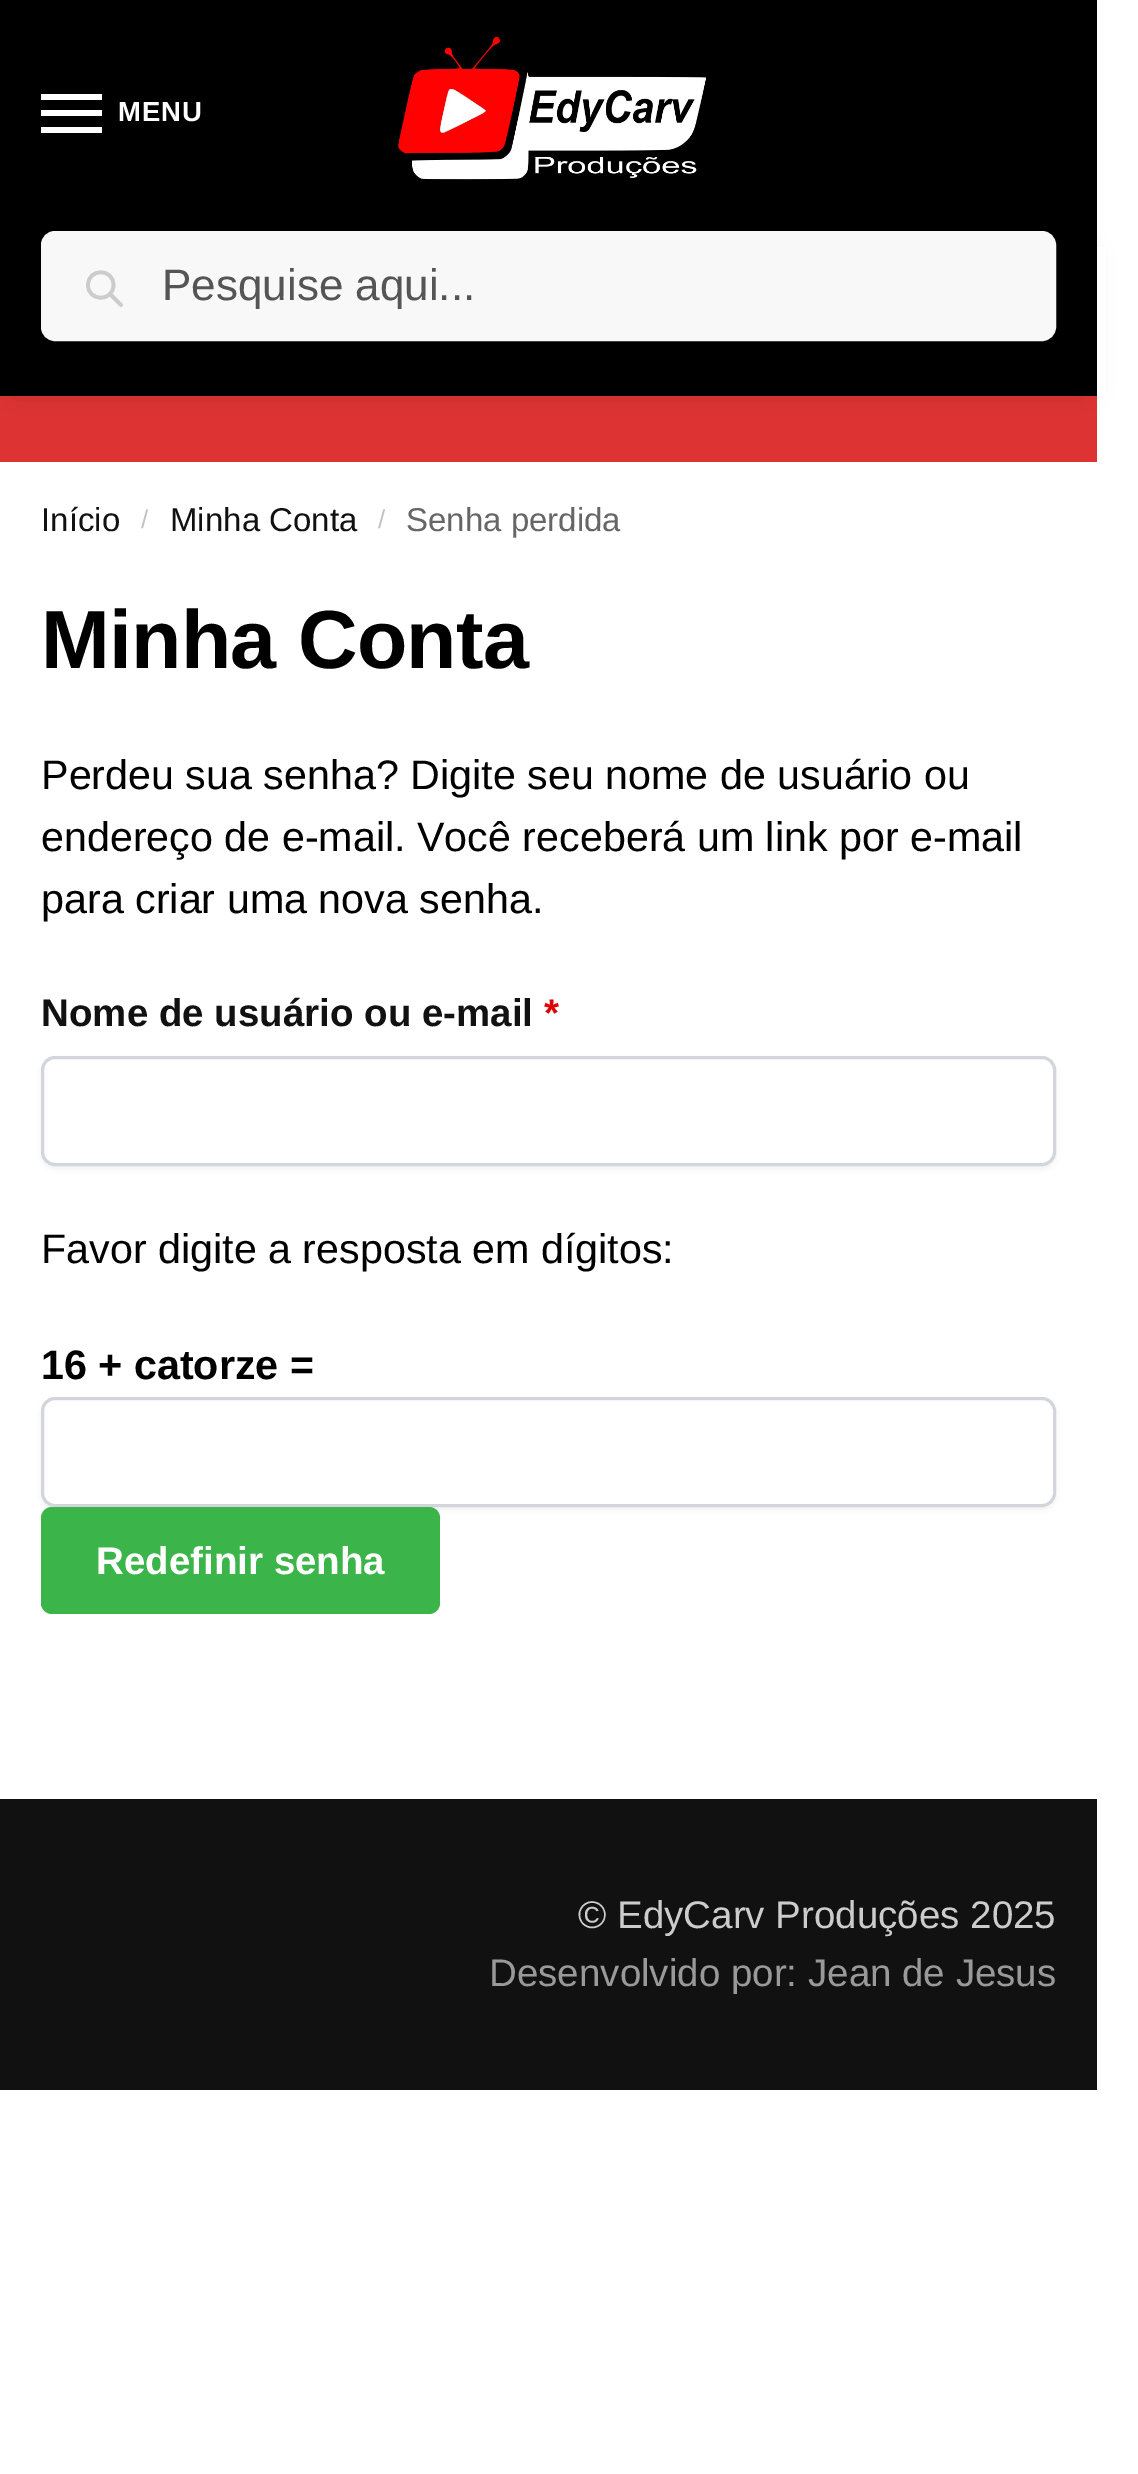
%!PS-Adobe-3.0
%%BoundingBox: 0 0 1138 2474
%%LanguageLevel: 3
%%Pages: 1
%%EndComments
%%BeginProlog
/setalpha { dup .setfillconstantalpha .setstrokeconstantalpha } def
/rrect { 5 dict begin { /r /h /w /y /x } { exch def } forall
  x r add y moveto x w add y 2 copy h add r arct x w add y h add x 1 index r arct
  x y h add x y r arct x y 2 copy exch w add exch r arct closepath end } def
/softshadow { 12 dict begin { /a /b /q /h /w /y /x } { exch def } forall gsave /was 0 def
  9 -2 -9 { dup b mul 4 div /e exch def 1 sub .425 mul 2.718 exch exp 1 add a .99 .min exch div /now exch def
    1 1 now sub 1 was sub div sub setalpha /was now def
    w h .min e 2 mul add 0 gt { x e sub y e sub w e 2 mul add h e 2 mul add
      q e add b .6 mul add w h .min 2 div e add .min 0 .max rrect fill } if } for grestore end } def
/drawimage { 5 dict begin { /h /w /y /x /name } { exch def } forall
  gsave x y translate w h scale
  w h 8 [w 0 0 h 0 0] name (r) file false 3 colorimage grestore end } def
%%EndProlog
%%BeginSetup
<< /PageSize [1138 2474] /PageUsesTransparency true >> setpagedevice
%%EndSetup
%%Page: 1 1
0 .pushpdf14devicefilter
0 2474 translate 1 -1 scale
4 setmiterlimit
1 setgray
0 0 1138 2474 rectfill
0 setgray
0 0 1097 231 rectfill
1 setgray
41 94 61 6 rectfill
41 110 61 6 rectfill
41 127 61 6 rectfill
(images/1.raw) 398 37 308 143 drawimage
0.871 0.2 0.2 setrgbcolor
0 396 1097 66 rectfill
0 setgray
14 253 1070 138 0 14 0.18 softshadow
0 231 1097 165 rectfill
0.973 setgray
42.5 232.5 1012 107 12.5 rrect gsave fill grestore
3 setlinewidth
stroke
0.8 setgray
3.7 setlinewidth
1 setlinecap
1 setlinejoin
newpath 121 305 moveto 110 294 lineto 113.5 285 moveto 113.5 302 88 302 88 285 curveto 88 268 113.5 268 113.5 285 curveto closepath stroke
1 setgray
1097 247 9 150 rectfill
0 setgray
41 1059 1015 110 14 3 0.05 softshadow
1 setgray
42.5 1057.5 1012 107 12.5 rrect gsave fill grestore
0.824 0.839 0.863 setrgbcolor
3 setlinewidth
0 setlinecap
0 setlinejoin
stroke
0 setgray
41 1400 1015 110 14 3 0.05 softshadow
1 setgray
42.5 1398.5 1012 107 12.5 rrect gsave fill grestore
0.824 0.839 0.863 setrgbcolor
stroke
0.231 0.71 0.29 setrgbcolor
41 1507 399 107 11 rrect fill
0.067 setgray
0 1799 1097 291 rectfill
/LiberationSans-Bold [27.5 0 0 -27.5 0 0] selectfont
1 setgray
118 121 moveto 1 0 (MENU) ashow
/LiberationSans-Regular [44 0 0 -44 0 0] selectfont
0.333 setgray
162 300 moveto (Pesquise aqui...) show
/LiberationSans-Regular [33 0 0 -33 0 0] selectfont
0.067 setgray
41 531 moveto (Início) show
/LiberationSans-Regular [26 0 0 -26 0 0] selectfont
0.761 setgray
141 528 moveto (/) show
/LiberationSans-Regular [33 0 0 -33 0 0] selectfont
0.067 setgray
170 531 moveto (Minha Conta) show
/LiberationSans-Regular [26 0 0 -26 0 0] selectfont
0.761 setgray
378 528 moveto (/) show
/LiberationSans-Regular [33 0 0 -33 0 0] selectfont
0.4 setgray
406 531 moveto (Senha perdida) show
/LiberationSans-Bold [82.5 0 0 -82.5 0 0] selectfont
0 setgray
41 668 moveto -0.75 0 (Minha Conta) ashow
/LiberationSans-Regular [41.25 0 0 -41.25 0 0] selectfont
41 789 moveto (Perdeu sua senha? Digite seu nome de usuário ou) show
41 851 moveto (endereço de e-mail. Você receberá um link por e-mail) show
41 913 moveto (para criar uma nova senha.) show
/LiberationSans-Bold [38.5 0 0 -38.5 0 0] selectfont
0.067 setgray
41 1026 moveto (Nome de usuário ou e-mail) show
0.875 0.008 0.008 setrgbcolor
544 1026 moveto (*) show
/LiberationSans-Regular [41.25 0 0 -41.25 0 0] selectfont
0 setgray
41 1263 moveto (Favor digite a resposta em dígitos:) show
/LiberationSans-Bold [41.25 0 0 -41.25 0 0] selectfont
41 1379 moveto (16 + catorze =) show
/LiberationSans-Bold [38.5 0 0 -38.5 0 0] selectfont
1 setgray
96 1574 moveto (Redefinir senha) show
/LiberationSans-Regular [38.5 0 0 -38.5 0 0] selectfont
0.8 setgray
578 1928 moveto (© EdyCarv Produções 2025) show
0.6 setgray
489 1986 moveto (Desenvolvido por: Jean de Jesus) show
.poppdf14devicefilter showpage
%%EOF
